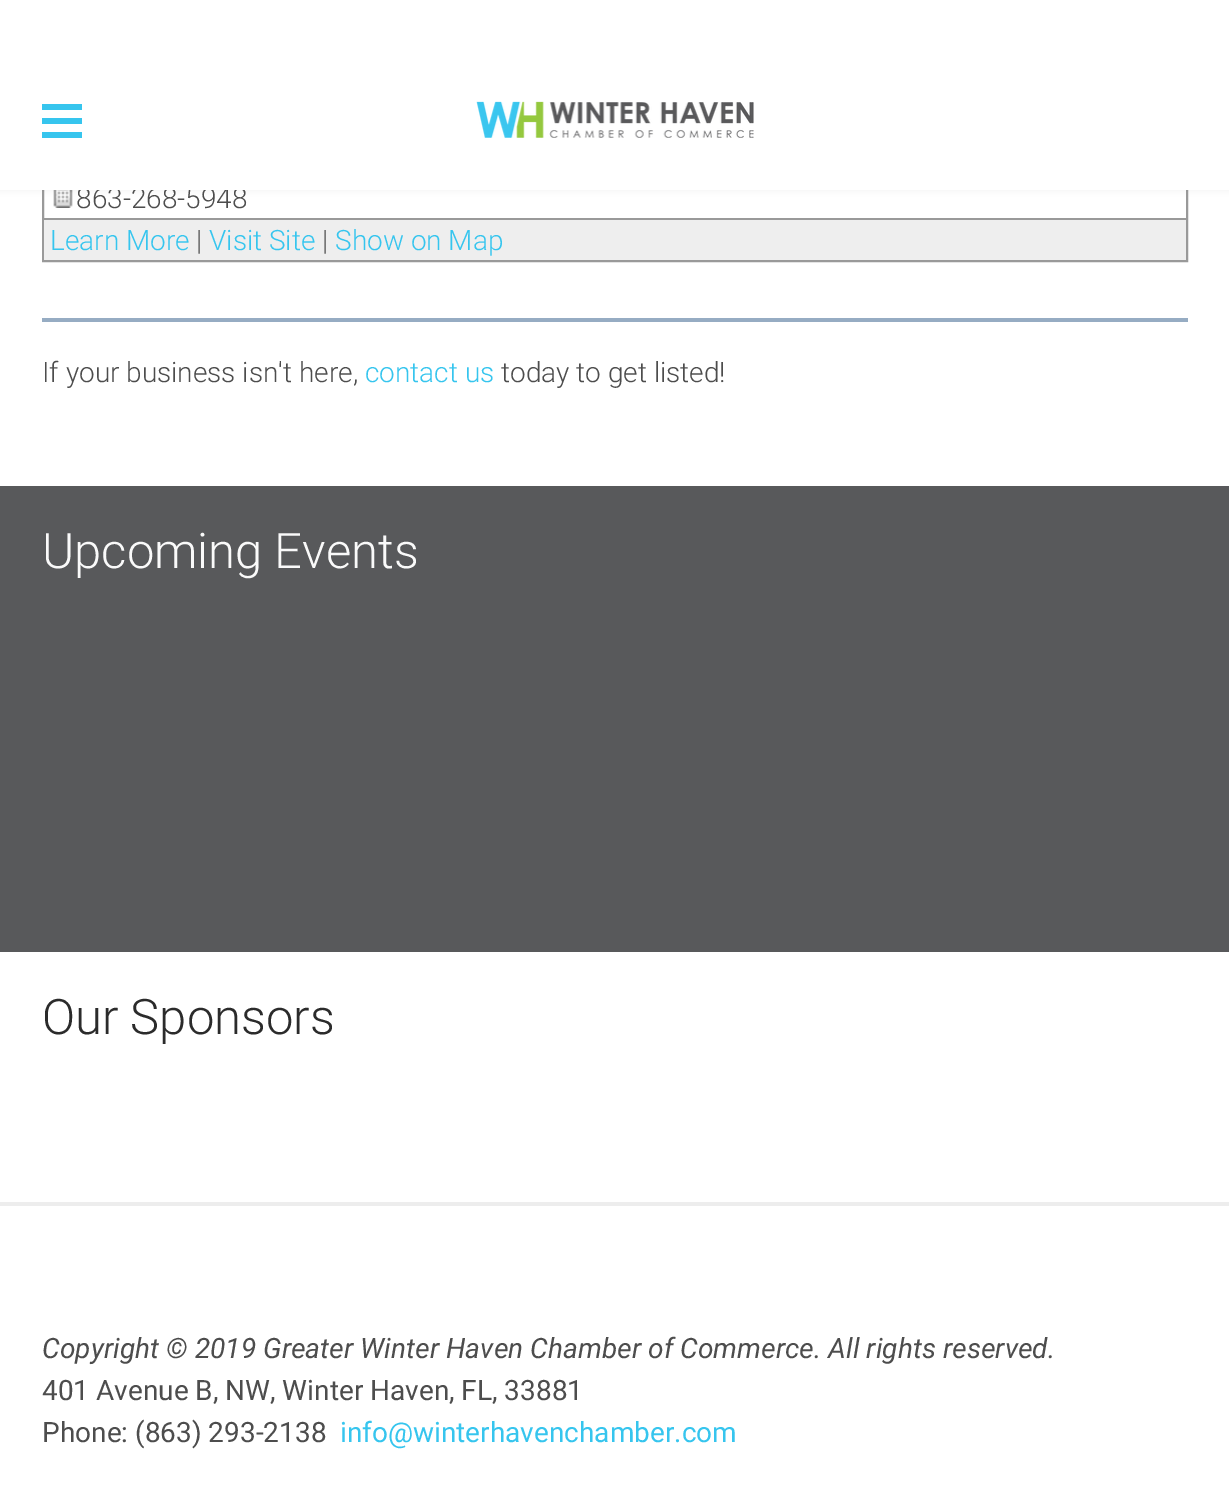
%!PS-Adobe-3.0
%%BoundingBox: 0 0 1229 1510
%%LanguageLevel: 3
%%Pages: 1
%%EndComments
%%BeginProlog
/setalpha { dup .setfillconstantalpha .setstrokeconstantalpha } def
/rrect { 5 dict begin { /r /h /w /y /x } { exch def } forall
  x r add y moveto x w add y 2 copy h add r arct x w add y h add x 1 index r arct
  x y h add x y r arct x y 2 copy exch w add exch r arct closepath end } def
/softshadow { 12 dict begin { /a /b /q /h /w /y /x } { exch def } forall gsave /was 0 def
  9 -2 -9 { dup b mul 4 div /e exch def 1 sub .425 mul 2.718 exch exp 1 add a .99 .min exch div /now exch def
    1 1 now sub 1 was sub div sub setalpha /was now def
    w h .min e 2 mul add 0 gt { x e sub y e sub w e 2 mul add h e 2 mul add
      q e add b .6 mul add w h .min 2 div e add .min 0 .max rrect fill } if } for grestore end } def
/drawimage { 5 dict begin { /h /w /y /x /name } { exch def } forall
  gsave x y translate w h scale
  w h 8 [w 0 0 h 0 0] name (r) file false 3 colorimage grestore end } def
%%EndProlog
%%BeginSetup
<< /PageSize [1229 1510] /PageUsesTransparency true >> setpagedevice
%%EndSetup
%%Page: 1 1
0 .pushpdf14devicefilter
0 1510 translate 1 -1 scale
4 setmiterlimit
1 setgray
0 0 1229 1510 rectfill
0.6 setgray
2 setlinewidth
43 67 1144 194 rectstroke
(images/2.raw) 53 190 20 18 drawimage
0.388 setgray
0 0 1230 190 0 3 0.1 softshadow
0.933 setgray
44 220 1142 40 rectfill
0.6 setgray
44 218 1142 2 rectfill
0.588 0.675 0.765 setrgbcolor
42 318 1146 4 rectfill
0.345 0.349 0.357 setrgbcolor
0 486 1229 466 rectfill
0.929 setgray
0 1202 1229 4 rectfill
/Roboto-Light [28 0 0 -28 0 0] selectfont
0.302 setgray
76 208 moveto (863-268-5948) show
1 setgray
0 0 1229 190 rectfill
0.212 0.773 0.933 setrgbcolor
42 132 40 6 rectfill
42 118 40 6 rectfill
42 104 40 6 rectfill
(images/1.raw) 476 101 278 37 drawimage
50 250 moveto (Learn More) show
0.302 setgray
196 250 moveto (|) show
0.212 0.773 0.933 setrgbcolor
209 250 moveto (Visit Site) show
0.302 setgray
322 250 moveto (|) show
0.212 0.773 0.933 setrgbcolor
335 250 moveto (Show on Map) show
0.302 setgray
42 382 moveto (If your business isn't here,) show
0.212 0.773 0.933 setrgbcolor
365 382 moveto (contact us) show
0.302 setgray
501 382 moveto (today to get listed!) show
/Roboto-Light [49 0 0 -49 0 0] selectfont
0.98 setgray
42 568 moveto (Upcoming Events) show
0.169 setgray
42 1034 moveto (Our Sponsors) show
/Roboto-Italic [28 0 0 -28 0 0] selectfont
0.302 setgray
42 1358 moveto (Copyright © 2019 Greater Winter Haven Chamber of Commerce. All rights reserved.) show
/Roboto-Regular [28 0 0 -28 0 0] selectfont
42 1400 moveto (401 Avenue B, NW, Winter Haven, FL, 33881) show
42 1442 moveto (Phone: \(863\) 293-2138) show
0.212 0.773 0.933 setrgbcolor
340 1442 moveto (info@winterhavenchamber.com) show
.poppdf14devicefilter showpage
%%EOF
